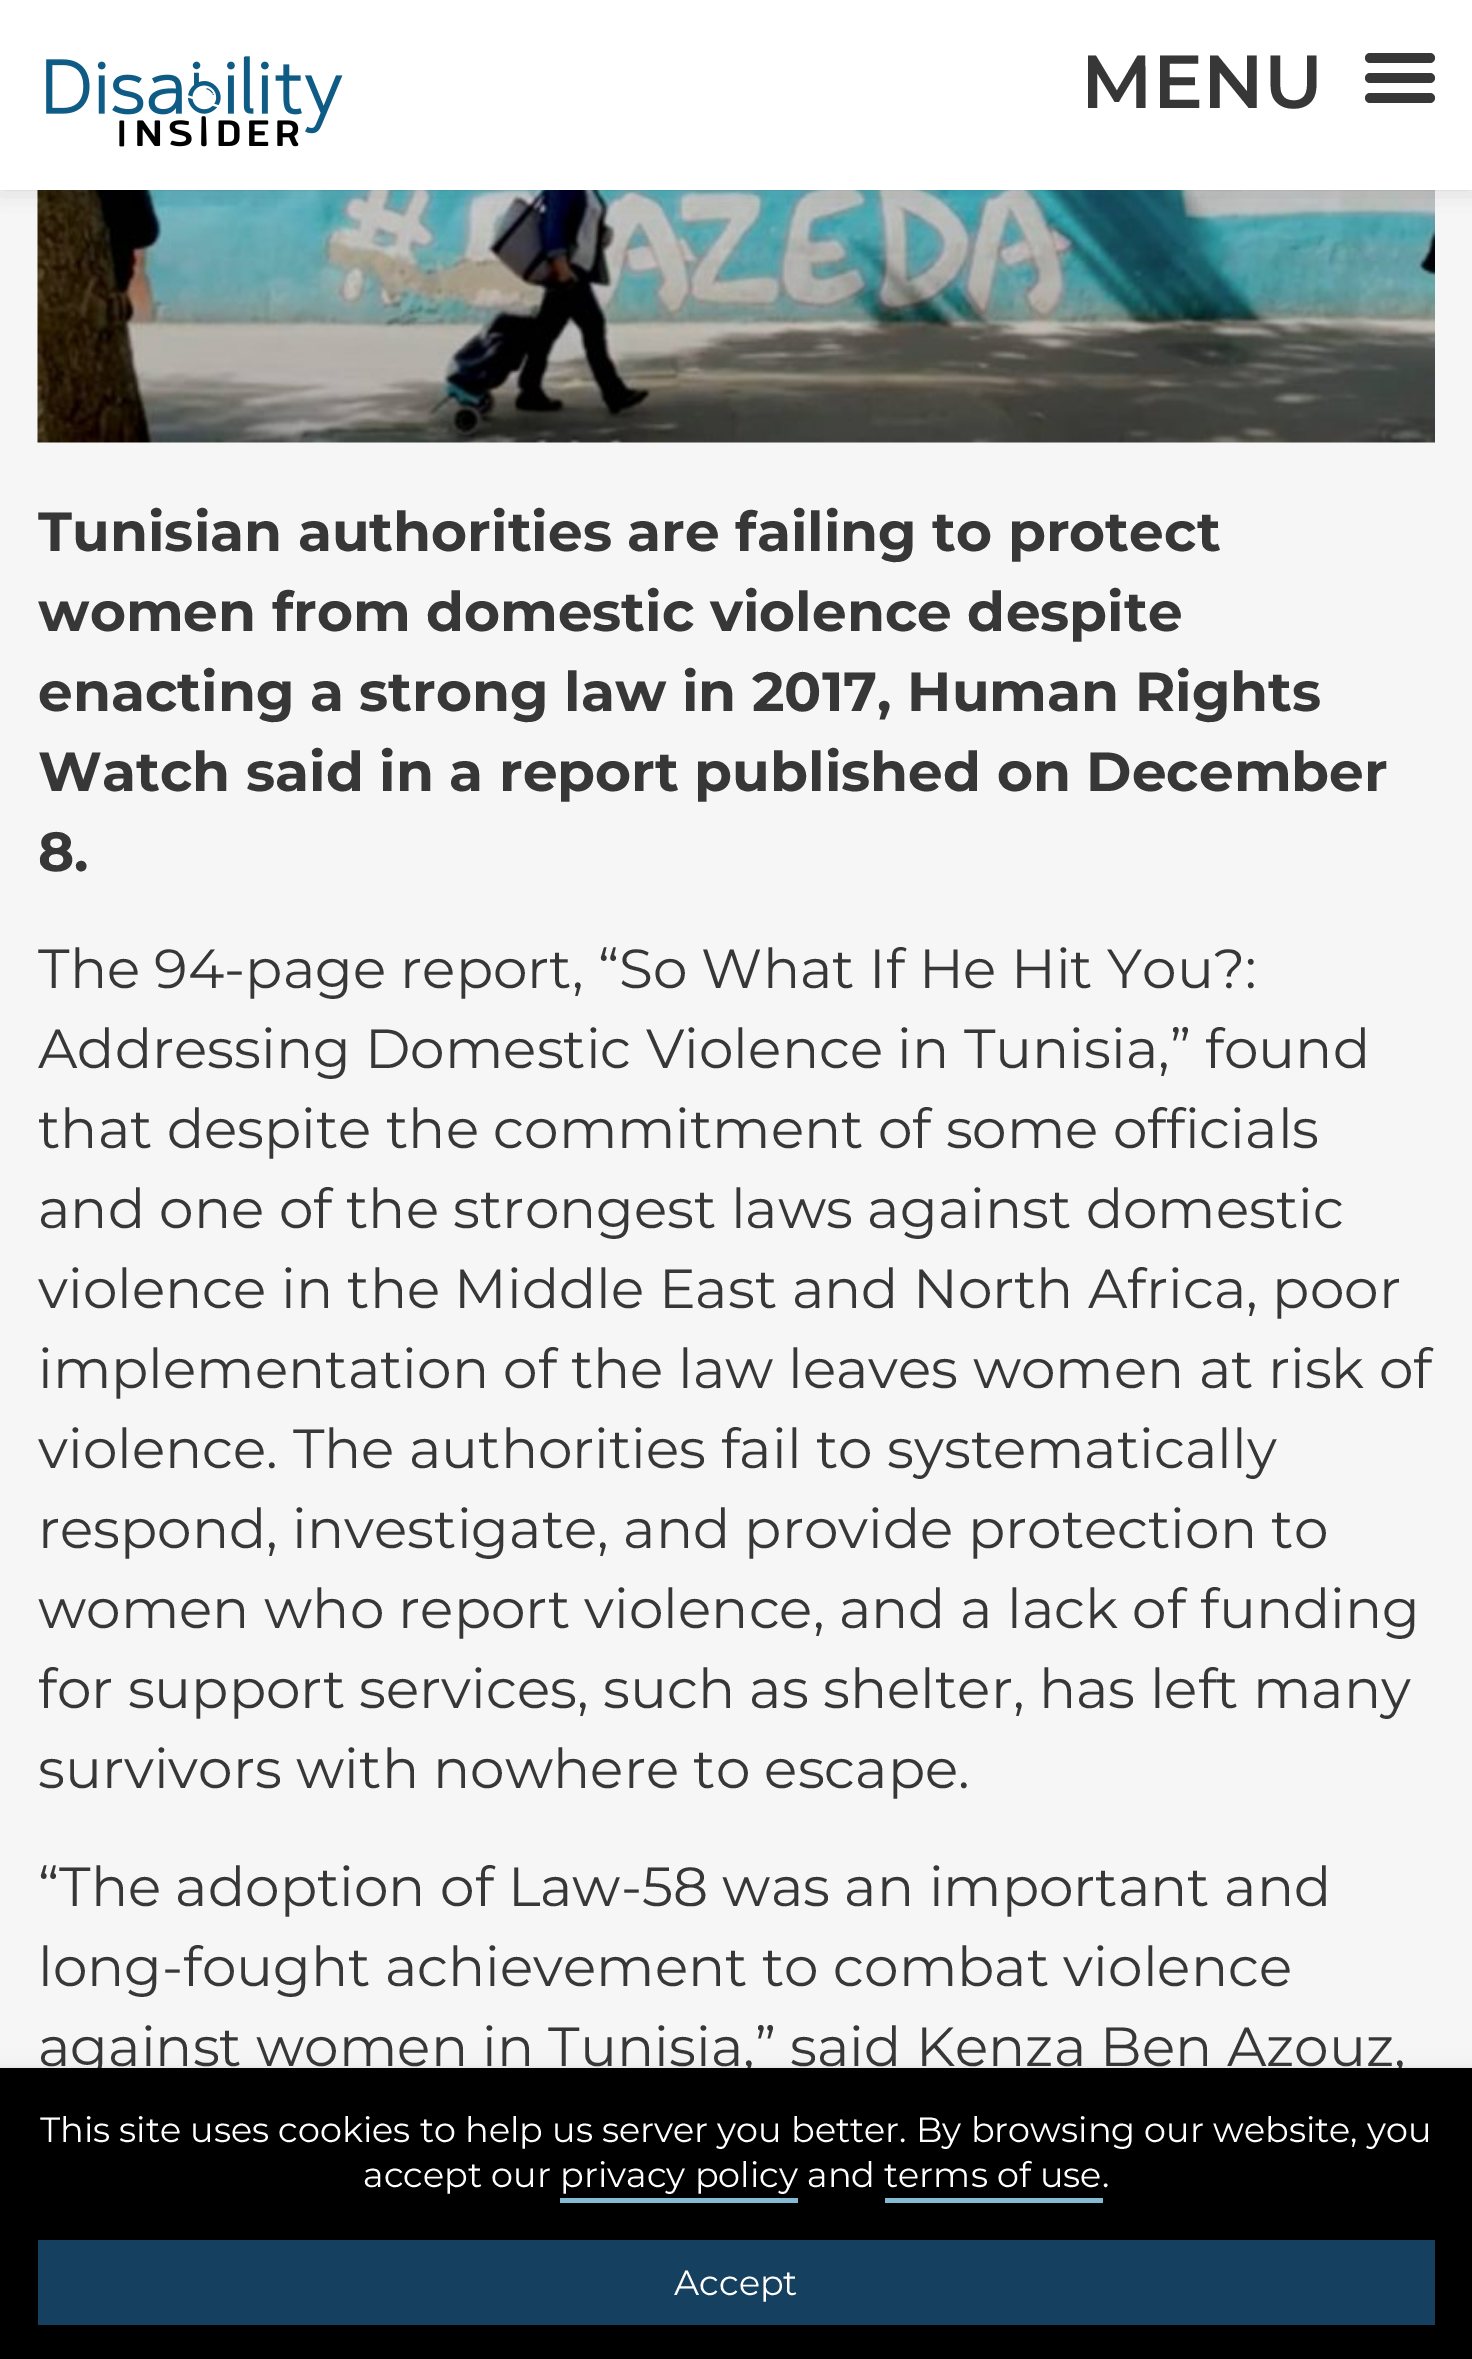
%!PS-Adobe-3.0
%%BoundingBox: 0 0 1472 2359
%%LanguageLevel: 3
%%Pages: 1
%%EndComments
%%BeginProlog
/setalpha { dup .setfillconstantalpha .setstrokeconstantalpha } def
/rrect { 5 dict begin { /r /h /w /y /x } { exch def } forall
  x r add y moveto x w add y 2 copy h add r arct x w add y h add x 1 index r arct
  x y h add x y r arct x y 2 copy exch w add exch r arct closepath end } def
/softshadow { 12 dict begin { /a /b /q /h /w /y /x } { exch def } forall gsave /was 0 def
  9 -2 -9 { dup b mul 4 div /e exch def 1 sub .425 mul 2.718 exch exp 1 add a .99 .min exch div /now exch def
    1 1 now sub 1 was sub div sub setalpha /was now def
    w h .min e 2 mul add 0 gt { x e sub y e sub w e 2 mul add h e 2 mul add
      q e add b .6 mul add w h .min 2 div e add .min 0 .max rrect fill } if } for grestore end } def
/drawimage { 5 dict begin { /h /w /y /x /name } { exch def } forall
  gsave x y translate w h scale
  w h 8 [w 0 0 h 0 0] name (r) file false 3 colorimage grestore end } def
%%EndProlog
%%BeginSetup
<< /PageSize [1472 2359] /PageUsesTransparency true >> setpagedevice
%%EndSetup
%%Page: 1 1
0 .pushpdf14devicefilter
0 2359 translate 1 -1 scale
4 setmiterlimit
0.965 setgray
0 0 1472 2359 rectfill
(images/2.raw) 37 190 1398 253 drawimage
0 setgray
0 -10 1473 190 0 15 0.3 softshadow
1 setgray
0 0 1472 190 rectfill
(images/1.raw) 46 56 297 91 drawimage
0.216 setgray
1365 53 70 10 5 rrect fill
1365 73 70 10 5 rrect fill
1365 93 70 10 5 rrect fill
0.302 0.282 0.271 setrgbcolor
0 2088 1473 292 0 17.5 0.2 softshadow
0 2070 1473 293 0 5 0.15 softshadow
/Montserrat-SemiBold [75 0 0 -75 0 0] selectfont
0.216 setgray
1081 108 moveto (MENU) show
/Montserrat-Bold [55 0 0 -55 0 0] selectfont
38 551 moveto (Tunisian authorities are failing to protect) show
38 631 moveto (women from domestic violence despite) show
38 711 moveto (enacting a strong law in 2017, Human Rights) show
38 791 moveto (Watch said in a report published on December) show
38 871 moveto (8.) show
/Montserrat-Regular [55 0 0 -55 0 0] selectfont
38 988 moveto (The 94-page report, “So What If He Hit You?:) show
38 1068 moveto (Addressing Domestic Violence in Tunisia,” found) show
38 1148 moveto (that despite the commitment of some officials) show
38 1228 moveto (and one of the strongest laws against domestic) show
38 1308 moveto (violence in the Middle East and North Africa, poor) show
38 1388 moveto (implementation of the law leaves women at risk of) show
38 1468 moveto (violence. The authorities fail to systematically) show
38 1548 moveto (respond, investigate, and provide protection to) show
38 1628 moveto (women who report violence, and a lack of funding) show
38 1708 moveto (for support services, such as shelter, has left many) show
38 1788 moveto (survivors with nowhere to escape.) show
38 1906 moveto (“The adoption of Law-58 was an important and) show
38 1986 moveto (long-fought achievement to combat violence) show
38 2066 moveto (against women in Tunisia,” said Kenza Ben Azouz,) show
0 setgray
0 2068 1472 291 rectfill
/Montserrat-Regular [35 0 0 -35 0 0] selectfont
1 setgray
40 2142 moveto (This site uses cookies to help us server you better. By browsing our website, you) show
363 2187 moveto (accept our privacy policy and terms of use.) show
0.518 0.733 0.831 setrgbcolor
560 2198 238 5 rectfill
885 2198 218 5 rectfill
0.086 0.251 0.376 setrgbcolor
38 2240 1397 85 rectfill
1 setgray
674 2295 moveto (Accept) show
.poppdf14devicefilter showpage
%%EOF
